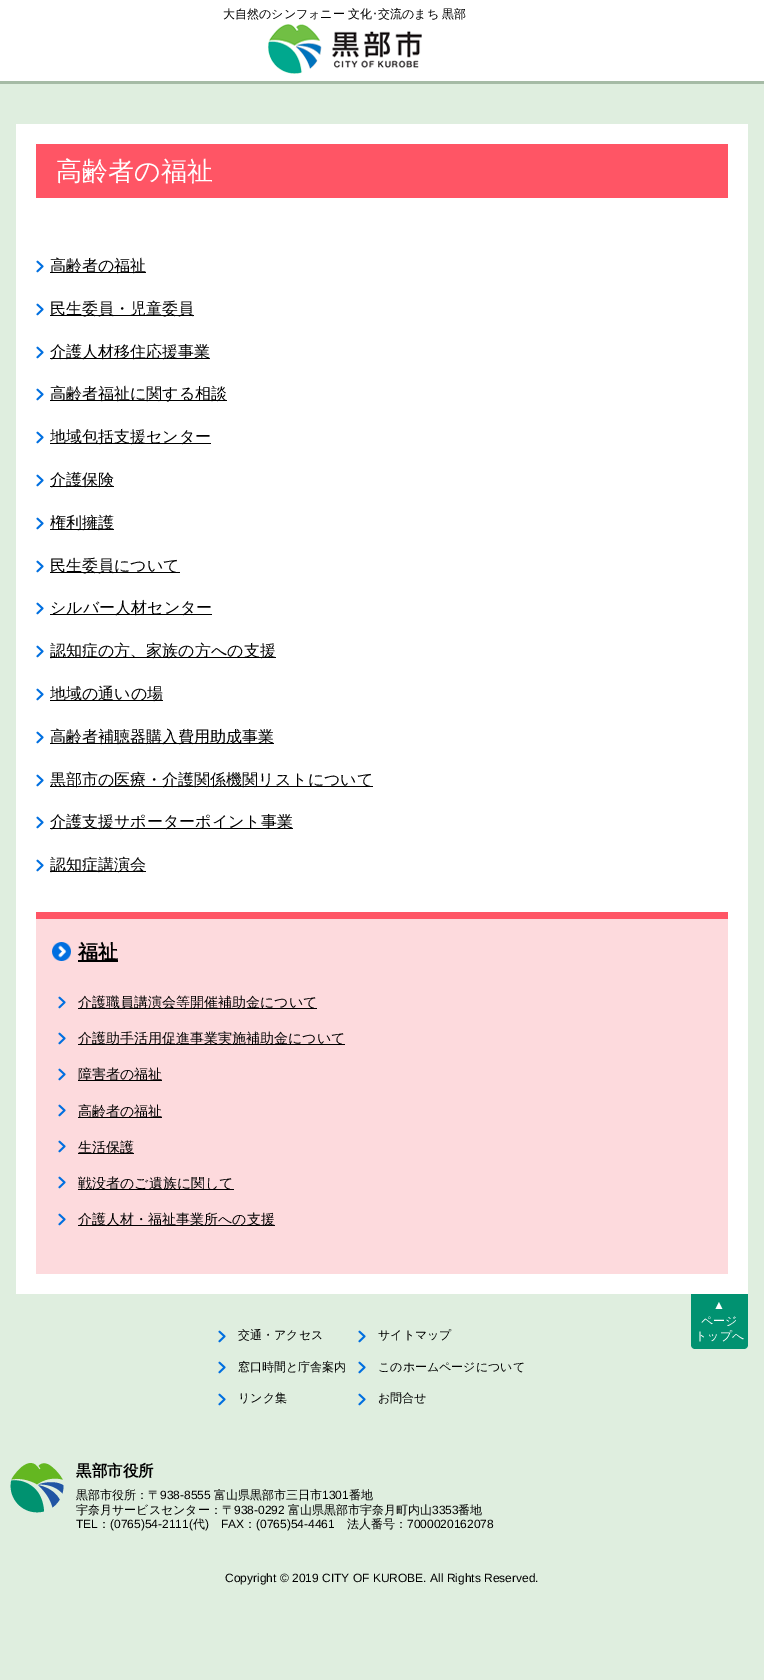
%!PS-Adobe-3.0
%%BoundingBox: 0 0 764 1680
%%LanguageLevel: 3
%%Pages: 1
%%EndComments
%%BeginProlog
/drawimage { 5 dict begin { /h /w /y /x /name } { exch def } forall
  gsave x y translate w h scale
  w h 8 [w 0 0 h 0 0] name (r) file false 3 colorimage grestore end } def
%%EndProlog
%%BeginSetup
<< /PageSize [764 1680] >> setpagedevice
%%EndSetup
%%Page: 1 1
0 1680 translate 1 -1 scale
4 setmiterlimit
0.875 0.933 0.875 setrgbcolor
0 0 764 1680 rectfill
1 setgray
0 0 764 81 rectfill
0.651 0.733 0.651 setrgbcolor
0 81 764 3 rectfill
(images/1.raw) 268 24 154 50 drawimage
1 setgray
16 124 732 1170 rectfill
1 0.333 0.396 setrgbcolor
36 144 692 54 rectfill
(images/2.raw) 36 260 8 13 drawimage
0 setgray
50 272 96 1 rectfill
(images/2.raw) 36 303 8 13 drawimage
50 315 144 1 rectfill
(images/2.raw) 36 346 8 13 drawimage
50 358 160 1 rectfill
(images/2.raw) 36 388 8 13 drawimage
50 400 177 1 rectfill
(images/2.raw) 36 431 8 13 drawimage
50 443 161 1 rectfill
(images/2.raw) 36 474 8 13 drawimage
50 486 64 1 rectfill
(images/2.raw) 36 517 8 13 drawimage
50 529 64 1 rectfill
(images/2.raw) 36 560 8 13 drawimage
50 572 130 1 rectfill
(images/2.raw) 36 602 8 13 drawimage
50 614 162 1 rectfill
(images/2.raw) 36 645 8 13 drawimage
50 657 226 1 rectfill
(images/2.raw) 36 688 8 13 drawimage
50 700 113 1 rectfill
(images/2.raw) 36 731 8 13 drawimage
50 743 224 1 rectfill
(images/2.raw) 36 774 8 13 drawimage
50 786 323 1 rectfill
(images/2.raw) 36 816 8 13 drawimage
50 828 243 1 rectfill
(images/2.raw) 36 859 8 13 drawimage
50 871 96 1 rectfill
0.992 0.855 0.867 setrgbcolor
36 919 692 355 rectfill
1 0.333 0.396 setrgbcolor
36 912 692 7 rectfill
(images/3.raw) 52 942 19 19 drawimage
0 setgray
78 960 40 2 rectfill
(images/4.raw) 58 996 8 13 drawimage
78 1008 239 1 rectfill
(images/4.raw) 58 1032 8 13 drawimage
78 1044 267 1 rectfill
(images/4.raw) 58 1068 8 13 drawimage
78 1080 84 1 rectfill
(images/4.raw) 58 1104 8 13 drawimage
78 1117 84 1 rectfill
(images/4.raw) 58 1140 8 13 drawimage
78 1153 56 1 rectfill
(images/4.raw) 58 1176 8 13 drawimage
78 1189 156 1 rectfill
(images/4.raw) 58 1213 8 13 drawimage
78 1225 197 1 rectfill
0.004 0.573 0.443 setrgbcolor
newpath 691 1294 moveto 748 1294 lineto 748 1345 lineto 748 1347 746 1349 744 1349 curveto 695 1349 lineto 693 1349 691 1347 691 1345 curveto closepath fill
(images/5.raw) 218 1330 8 13 drawimage
(images/5.raw) 358 1330 8 13 drawimage
(images/5.raw) 218 1361 8 13 drawimage
(images/5.raw) 358 1361 8 13 drawimage
(images/5.raw) 218 1393 8 13 drawimage
(images/5.raw) 358 1393 8 13 drawimage
(images/6.raw) 10 1463 54 50 drawimage
/WenQuanYiZenHei-Medium [12 0 0 -12 0 0] selectfont
0 setgray
223 18 moveto (大自然のシンフォニー 文化) show
/IPAPGothic-Regular [12 0 0 -12 0 0] selectfont
372 18 moveto (･) show
/WenQuanYiZenHei-Medium [12 0 0 -12 0 0] selectfont
378 18 moveto (交流のまち 黒部) show
/WenQuanYiZenHei-Medium [26 0 0 -26 0 0] selectfont
1 setgray
56 180 moveto (高齢者の福祉) show
/WenQuanYiZenHei-Medium [16 0 0 -16 0 0] selectfont
0 setgray
50 271 moveto (高齢者の福祉) show
50 314 moveto (民生委員・児童委員) show
50 357 moveto (介護人材移住応援事業) show
50 399 moveto (高齢者福祉に関する相談) show
50 442 moveto (地域包括支援センター) show
50 485 moveto (介護保険) show
50 528 moveto (権利擁護) show
50 571 moveto (民生委員について) show
50 613 moveto (シルバー人材センター) show
50 656 moveto (認知症の方、家族の方への支援) show
50 699 moveto (地域の通いの場) show
50 742 moveto (高齢者補聴器購入費用助成事業) show
50 785 moveto (黒部市の医療・介護関係機関リストについて) show
50 827 moveto (介護支援サポーターポイント事業) show
50 870 moveto (認知症講演会) show
/WenQuanYiZenHei-Bold [20 0 0 -20 0 0] selectfont
78 959 moveto (福祉) show
/WenQuanYiZenHei-Medium [14 0 0 -14 0 0] selectfont
78 1007 moveto (介護職員講演会等開催補助金について) show
78 1043 moveto (介護助手活用促進事業実施補助金について) show
78 1079 moveto (障害者の福祉) show
78 1116 moveto (高齢者の福祉) show
78 1152 moveto (生活保護) show
78 1188 moveto (戦没者のご遺族に関して) show
78 1224 moveto (介護人材・福祉事業所への支援) show
/LiberationSans-Regular [12 0 0 -12 0 0] selectfont
1 setgray
713 1309 moveto (▲) show
/WenQuanYiZenHei-Medium [12 0 0 -12 0 0] selectfont
701 1325 moveto (ページ) show
695 1340 moveto (トップへ) show
0 setgray
238 1339 moveto (交通・アクセス) show
378 1339 moveto (サイトマップ) show
238 1371 moveto (窓口時間と庁舎案内) show
378 1371 moveto (このホームページについて) show
238 1402 moveto (リンク集) show
378 1402 moveto (お問合せ) show
/WenQuanYiZenHei-Bold [15.5 0 0 -15.5 0 0] selectfont
76 1476 moveto (黒部市役所) show
/WenQuanYiZenHei-Medium [12 0 0 -12 0 0] selectfont
76 1499 moveto (黒部市役所：〒) show
/LiberationSans-Regular [12 0 0 -12 0 0] selectfont
160 1499 moveto (938-8555) show
/WenQuanYiZenHei-Medium [12 0 0 -12 0 0] selectfont
214 1499 moveto (富山県黒部市三日市) show
/LiberationSans-Regular [12 0 0 -12 0 0] selectfont
322 1499 moveto (1301) show
/WenQuanYiZenHei-Medium [12 0 0 -12 0 0] selectfont
349 1499 moveto (番地) show
76 1514 moveto (宇奈月サービスセンター：〒) show
/LiberationSans-Regular [12 0 0 -12 0 0] selectfont
234 1514 moveto (938-0292) show
/WenQuanYiZenHei-Medium [12 0 0 -12 0 0] selectfont
288 1514 moveto (富山県黒部市宇奈月町内山) show
/LiberationSans-Regular [12 0 0 -12 0 0] selectfont
432 1514 moveto (3353) show
/WenQuanYiZenHei-Medium [12 0 0 -12 0 0] selectfont
458 1514 moveto (番地) show
/LiberationSans-Regular [12 0 0 -12 0 0] selectfont
76 1528 moveto (TEL) show
/WenQuanYiZenHei-Medium [12 0 0 -12 0 0] selectfont
98 1528 moveto (：) show
/LiberationSans-Regular [12 0 0 -12 0 0] selectfont
110 1528 moveto (\(0765\)54-2111\() show
/WenQuanYiZenHei-Medium [12 0 0 -12 0 0] selectfont
193 1528 moveto (代) show
/LiberationSans-Regular [12 0 0 -12 0 0] selectfont
205 1528 moveto (\)) show
221 1528 moveto (FAX) show
/WenQuanYiZenHei-Medium [12 0 0 -12 0 0] selectfont
244 1528 moveto (：) show
/LiberationSans-Regular [12 0 0 -12 0 0] selectfont
256 1528 moveto (\(0765\)54-4461) show
/WenQuanYiZenHei-Medium [12 0 0 -12 0 0] selectfont
347 1528 moveto (法人番号：) show
/LiberationSans-Regular [12 0 0 -12 0 0] selectfont
407 1528 moveto (7000020162078) show
225 1582 moveto (Copyright © 2019 CITY OF KUROBE. All Rights Reserved.) show
showpage
%%EOF
